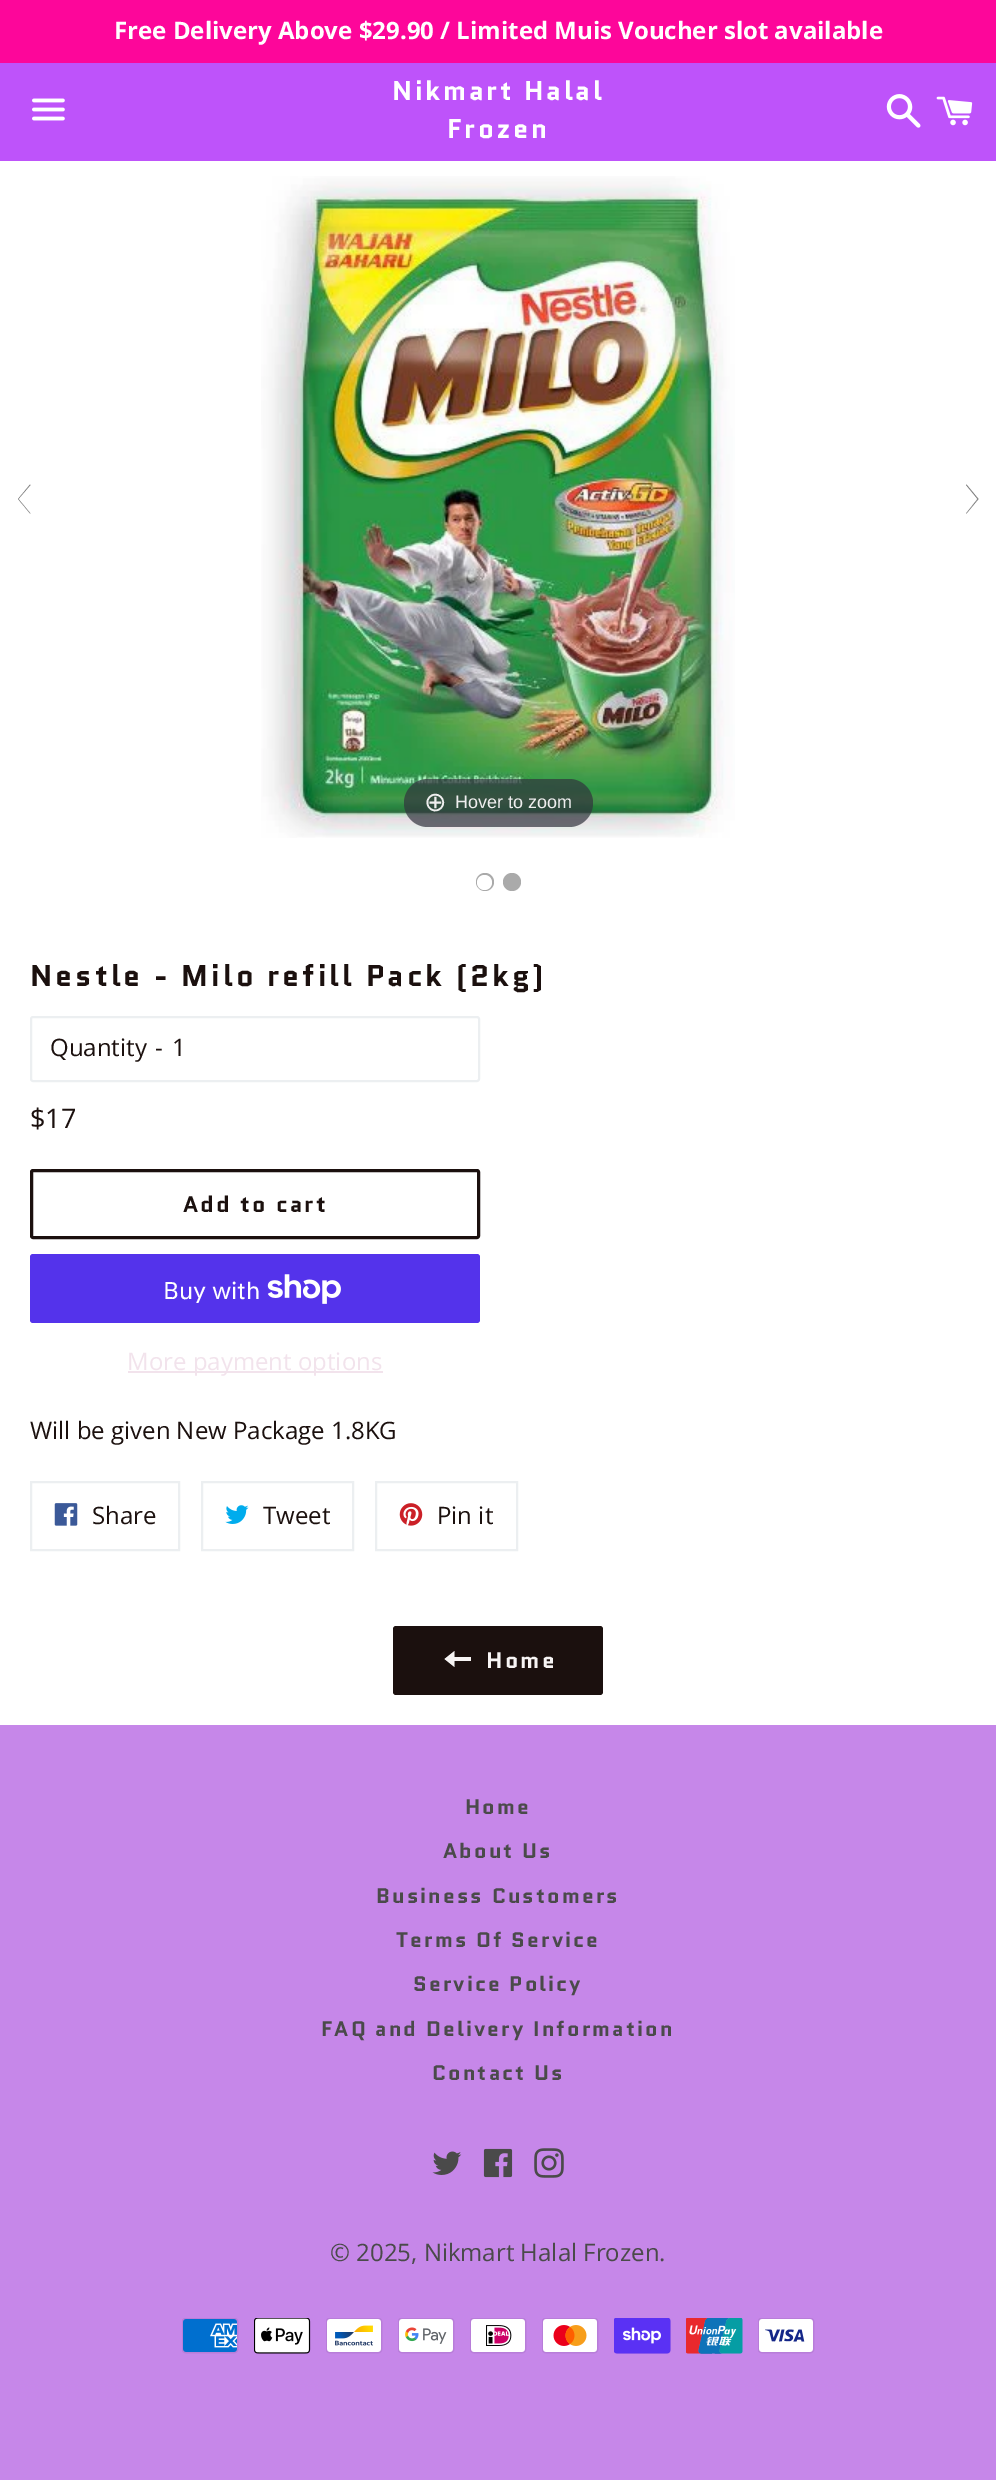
%!PS-Adobe-3.0
%%BoundingBox: 0 0 996 2480
%%LanguageLevel: 3
%%Pages: 1
%%EndComments
%%BeginProlog
/setalpha { dup .setfillconstantalpha .setstrokeconstantalpha } def
/rrect { 5 dict begin { /r /h /w /y /x } { exch def } forall
  x r add y moveto x w add y 2 copy h add r arct x w add y h add x 1 index r arct
  x y h add x y r arct x y 2 copy exch w add exch r arct closepath end } def
/drawimage { 5 dict begin { /h /w /y /x /name } { exch def } forall
  gsave x y translate w h scale
  w h 8 [w 0 0 h 0 0] name (r) file false 3 colorimage grestore end } def
%%EndProlog
%%BeginSetup
<< /PageSize [996 2480] /PageUsesTransparency true >> setpagedevice
%%EndSetup
%%Page: 1 1
0 .pushpdf14devicefilter
0 2480 translate 1 -1 scale
4 setmiterlimit
0.776 0.529 0.914 setrgbcolor
0 0 996 2480 rectfill
1 setgray
0 161 996 1564 rectfill
0.992 0.024 0.604 setrgbcolor
0 0 996 63 rectfill
0.745 0.325 0.98 setrgbcolor
0 63 996 98 rectfill
(images/1.raw) 32 98 33 23 drawimage
(images/2.raw) 886 94 35 34 drawimage
(images/3.raw) 936 96 37 30 drawimage
0.502 setgray
newpath 18 499 moveto 30 484.5 lineto 30.5 485 lineto 18.5 499 lineto 30.5 513.5 lineto 30 513.5 lineto closepath fill
newpath 978.5 499 moveto 966.5 513.5 lineto 966 513.5 lineto 977.5 499 lineto 966 485 lineto 966.5 484.5 lineto closepath fill
(images/4.raw) 261 176 474 662 drawimage
0.7 setalpha
0.192 0.2 0.239 setrgbcolor
404 779 189 48 24 rrect fill
1 setalpha
0.667 setgray
newpath 485 882 9 0 360 arc closepath fill
1 setgray
newpath 484.5 882.5 7.5 0 360 arc closepath fill
0.667 setgray
newpath 512 882 9 0 360 arc closepath fill
0.925 0.937 0.945 setrgbcolor
2 setlinewidth
31 1017 448 64 2 rrect stroke
0.106 0.063 0.055 setrgbcolor
3 setlinewidth
31.5 1170.5 447 67 1.5 rrect stroke
0.329 0.2 0.922 setrgbcolor
30 1254 450 69 3 rrect fill
(images/5.raw) 267 1274 74 30 drawimage
0.949 0.89 0.925 setrgbcolor
128 1371 255 2 rectfill
0.925 0.937 0.945 setrgbcolor
2 setlinewidth
31 1482 148 68 rectstroke
(images/6.raw) 54 1503 24 23 drawimage
202 1482 151 68 rectstroke
(images/7.raw) 225 1505 24 19 drawimage
376 1482 141 68 rectstroke
(images/8.raw) 399 1503 24 23 drawimage
0.106 0.063 0.055 setrgbcolor
393 1626 210 69 3 rrect fill
0.969 0.957 0.957 setrgbcolor
newpath 454.5 1657 moveto 454.5 1651 lineto 444.5 1659 lineto 454.5 1667 lineto 454.5 1661 lineto 471 1661 lineto 471 1657 lineto closepath fill
(images/9.raw) 432 2151 30 24 drawimage
(images/10.raw) 483 2148 30 30 drawimage
(images/11.raw) 534 2148 30 30 drawimage
(images/12.raw) 182 2318 57 36 drawimage
(images/13.raw) 254 2318 57 36 drawimage
(images/14.raw) 326 2318 57 36 drawimage
(images/15.raw) 398 2318 57 36 drawimage
(images/16.raw) 470 2318 57 36 drawimage
(images/17.raw) 542 2318 57 36 drawimage
(images/18.raw) 614 2318 57 36 drawimage
(images/19.raw) 686 2318 57 36 drawimage
(images/20.raw) 758 2318 57 36 drawimage
/OpenSans-Bold [24 0 0 -24 0 0] selectfont
1 setgray
114 39 moveto (Free Delivery Above $29.90 / Limited Muis Voucher slot available) show
/Quantico-Bold [27 0 0 -27 0 0] selectfont
392 100 moveto 2.75 0 (Nikmart Halal) ashow
447 138 moveto 2.75 0 (Frozen) ashow
/DejaVuSans-Regular [27 0 0 -27 0 0] selectfont
0.933 setgray
424 811 moveto (⊕) show
/LiberationSans-Regular [18 0 0 -18 0 0] selectfont
455 808 moveto (Hover to zoom) show
/Quantico-Bold [30 0 0 -30 0 0] selectfont
0.106 0.063 0.055 setrgbcolor
30 986 moveto 3 0 (Nestle - Milo refill Pack \(2kg\)) ashow
/OpenSans-Regular [24 0 0 -24 0 0] selectfont
50 1056 moveto (Quantity) show
155 1056 moveto (-) show
172 1056 moveto (1) show
/OpenSans-Regular [27 0 0 -27 0 0] selectfont
30 1128 moveto ($17) show
/Quantico-Bold [22.5 0 0 -22.5 0 0] selectfont
183 1212 moveto 2.25 0 (Add to cart) ashow
/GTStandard-Regular [24 0 0 -24 0 0] selectfont
1 setgray
163 1299 moveto (Buy with) show
/OpenSans-Regular [24 0 0 -24 0 0] selectfont
0.949 0.89 0.925 setrgbcolor
127 1370 moveto (More payment options) show
0.106 0.063 0.055 setrgbcolor
30 1439 moveto (Will be given New Package 1.8KG) show
92 1524 moveto (Share) show
263 1524 moveto (Tweet) show
437 1524 moveto (Pin it) show
/Quantico-Bold [22.5 0 0 -22.5 0 0] selectfont
0.969 0.957 0.957 setrgbcolor
486 1668 moveto 2.25 0 (Home) ashow
/Quantico-Bold [21 0 0 -21 0 0] selectfont
0.29 setgray
465 1814 moveto 2.1 0 (Home) ashow
443 1858 moveto 2.1 0 (About Us) ashow
376 1903 moveto 2.1 0 (Business Customers) ashow
396 1947 moveto 2.1 0 (Terms Of Service) ashow
413 1991 moveto 2.1 0 (Service Policy) ashow
321 2036 moveto 2.1 0 (FAQ and Delivery Information) ashow
432 2080 moveto 2.1 0 (Contact Us) ashow
/OpenSans-Regular [24 0 0 -24 0 0] selectfont
330 2261 moveto (© 2025, Nikmart Halal Frozen.) show
.poppdf14devicefilter showpage
%%EOF
